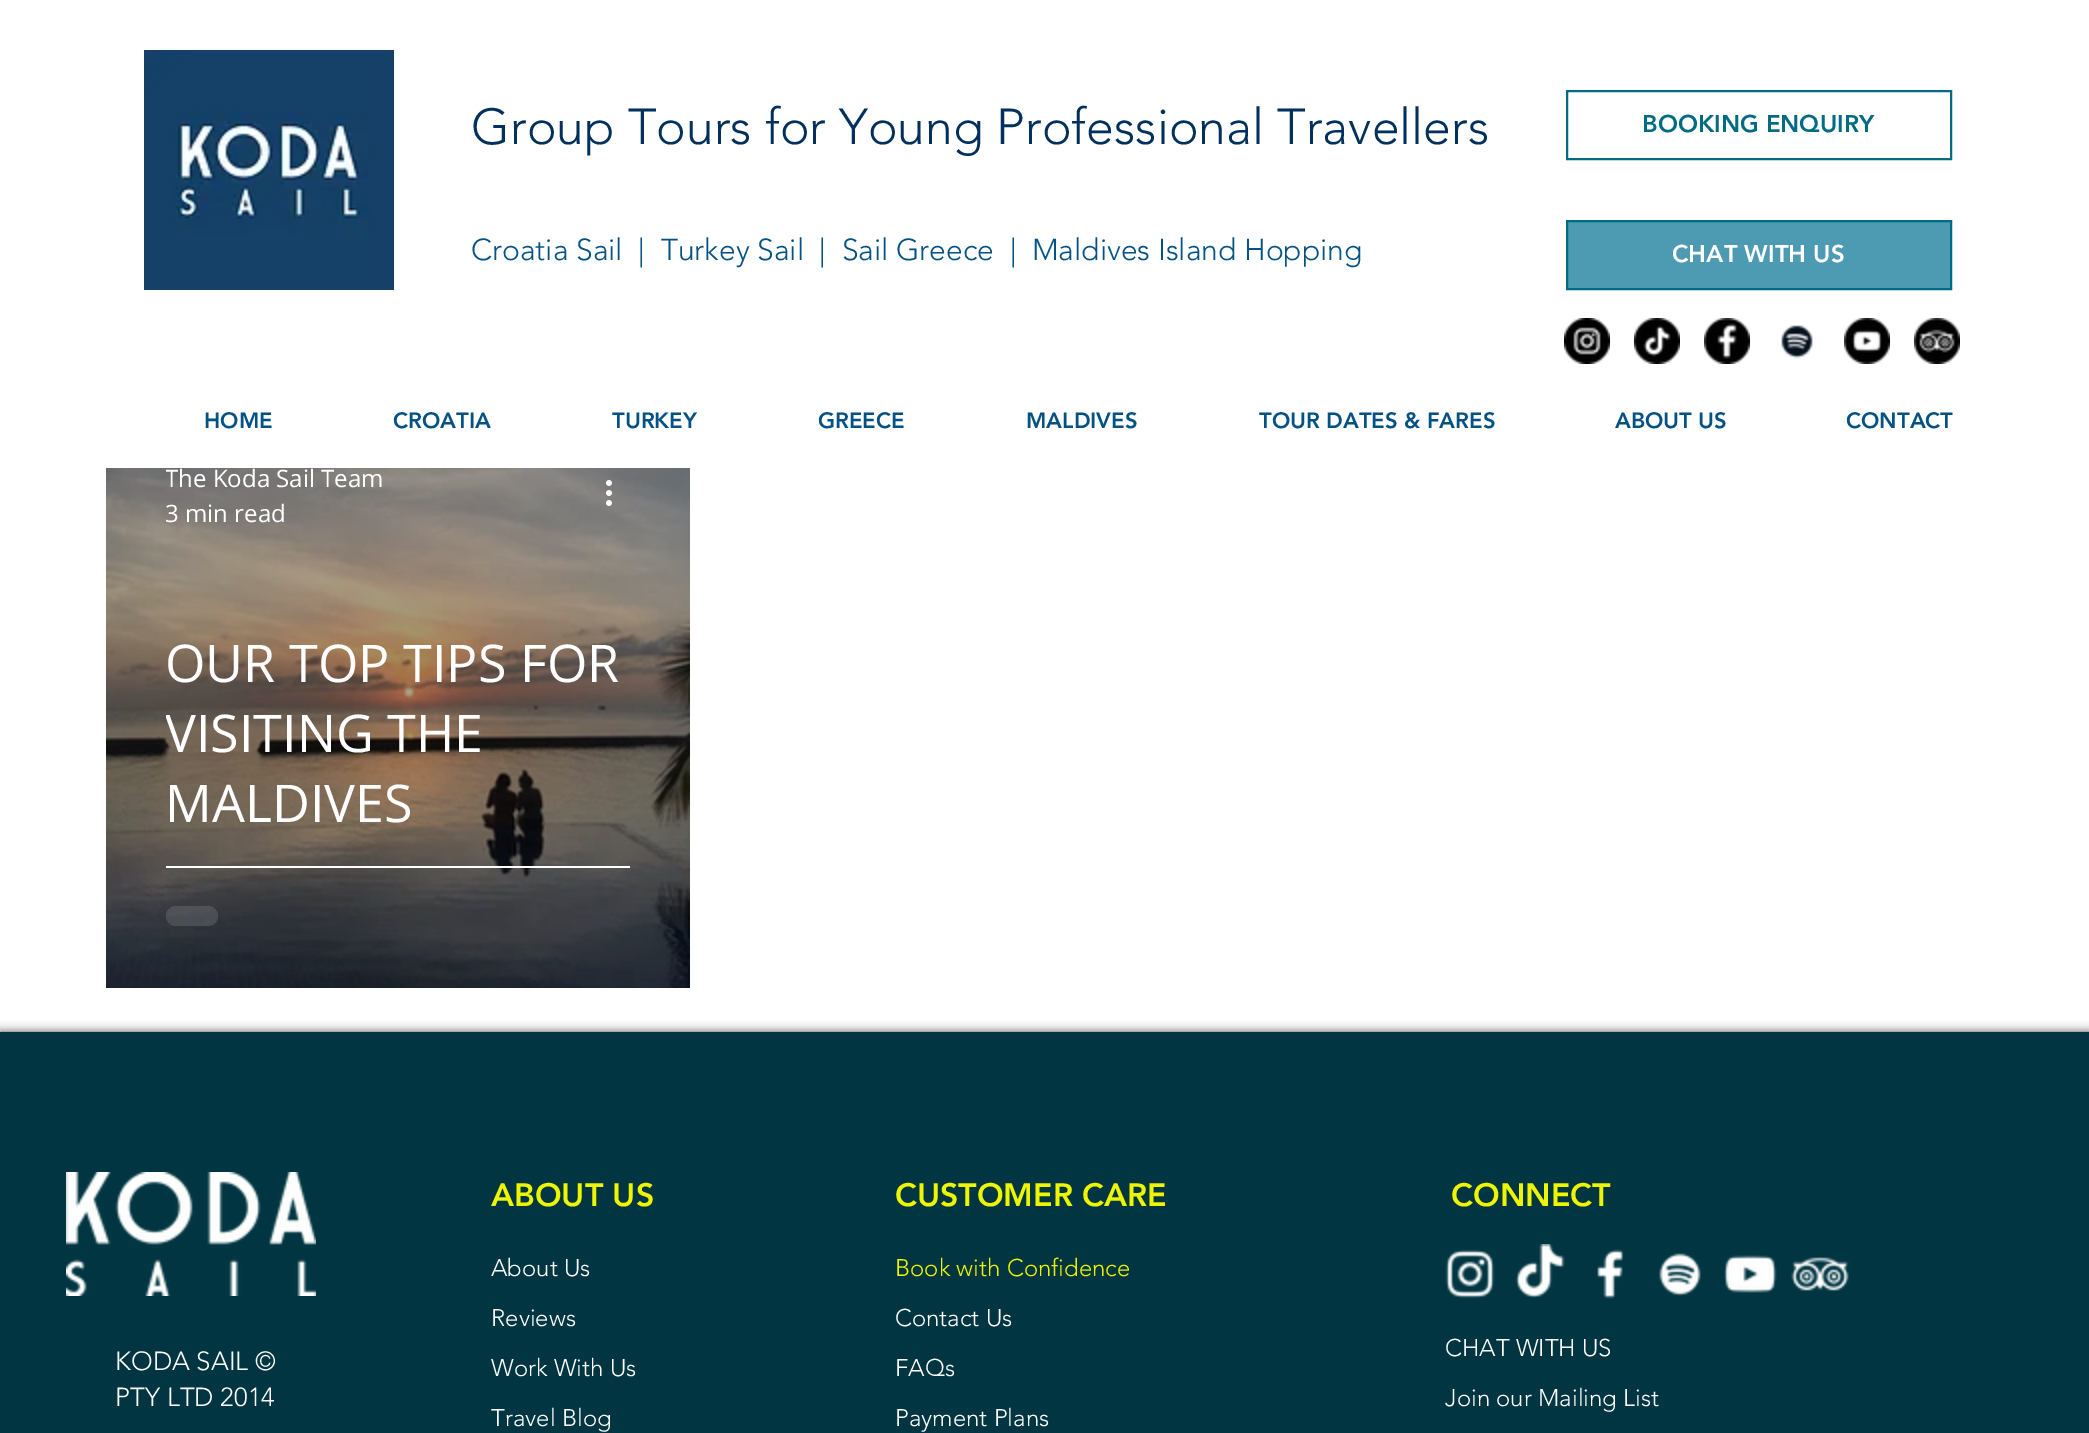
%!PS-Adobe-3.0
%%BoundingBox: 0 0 2089 1433
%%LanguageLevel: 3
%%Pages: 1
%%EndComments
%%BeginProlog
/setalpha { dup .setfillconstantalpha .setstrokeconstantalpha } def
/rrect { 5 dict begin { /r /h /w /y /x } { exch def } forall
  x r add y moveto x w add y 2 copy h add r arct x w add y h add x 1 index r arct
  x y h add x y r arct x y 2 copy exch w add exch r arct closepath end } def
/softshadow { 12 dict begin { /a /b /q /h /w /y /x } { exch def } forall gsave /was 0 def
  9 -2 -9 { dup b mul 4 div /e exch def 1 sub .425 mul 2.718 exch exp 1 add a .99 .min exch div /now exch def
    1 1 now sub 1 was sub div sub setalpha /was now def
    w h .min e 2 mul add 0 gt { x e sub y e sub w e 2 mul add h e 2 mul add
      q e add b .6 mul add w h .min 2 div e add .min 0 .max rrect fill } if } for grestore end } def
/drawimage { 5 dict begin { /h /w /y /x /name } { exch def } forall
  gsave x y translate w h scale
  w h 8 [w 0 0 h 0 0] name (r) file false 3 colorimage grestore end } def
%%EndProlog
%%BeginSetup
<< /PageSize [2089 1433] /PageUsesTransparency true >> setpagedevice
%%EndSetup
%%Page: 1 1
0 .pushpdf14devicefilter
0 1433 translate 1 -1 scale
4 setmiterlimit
1 setgray
0 0 2089 1433 rectfill
(images/1.raw) 144 50 250 240 drawimage
0 0.42 0.51 setrgbcolor
2 setlinewidth
1567 91 384 68 rectstroke
0.302 0.604 0.702 setrgbcolor
newpath 1567 221 moveto 1951 221 lineto 1951 289 lineto 1567 289 lineto closepath gsave fill grestore
0 0.42 0.51 setrgbcolor
stroke
(images/2.raw) 1564 318 46 46 drawimage
(images/3.raw) 1634 318 46 46 drawimage
(images/4.raw) 1704 318 46 46 drawimage
(images/5.raw) 1781 325 32 34 drawimage
(images/6.raw) 1844 318 46 46 drawimage
(images/7.raw) 1914 318 46 46 drawimage
(images/8.raw) 106 468 584 520 drawimage
(images/9.raw) 606 480 6 26 drawimage
1 setgray
166 866 464 2 rectfill
0.12 setalpha
166 906 52 20 10 rrect fill
1 setalpha
0 setgray
0 1032 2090 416 0 5 0.7 softshadow
0 0.208 0.255 setrgbcolor
0 1032 2089 401 rectfill
(images/10.raw) 66 1172 250 124 drawimage
(images/11.raw) 1445 1249 50 50 drawimage
(images/12.raw) 1515 1244 50 54 drawimage
(images/13.raw) 1597 1249 27 50 drawimage
(images/14.raw) 1659 1253 42 43 drawimage
(images/15.raw) 1724 1255 53 38 drawimage
(images/16.raw) 1791 1257 58 34 drawimage
/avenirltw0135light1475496-Light [50 0 0 -50 0 0] selectfont
0 0.188 0.357 setrgbcolor
471 144 moveto (Group Tours for Young Professional Travellers) show
/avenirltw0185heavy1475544-Black [24 0 0 -24 0 0] selectfont
0 0.42 0.51 setrgbcolor
1642 132 moveto (BOOKING ENQUIRY) show
/avenirltw0135light1475496-Light [30 0 0 -30 0 0] selectfont
0.016 0.318 0.518 setrgbcolor
471 260 moveto (Croatia Sail  |  Turkey Sail  |  Sail Greece  |  Maldives Island Hopping) show
/avenirltw0185heavy1475544-Black [24 0 0 -24 0 0] selectfont
1 setgray
1672 262 moveto (CHAT WITH US) show
/avenirltw0185heavy1475544-Black [22 0 0 -22 0 0] selectfont
0.016 0.318 0.518 setrgbcolor
204 428 moveto (HOME) show
393 428 moveto (CROATIA) show
612 428 moveto (TURKEY) show
818 428 moveto (GREECE) show
1026 428 moveto (MALDIVES) show
1259 428 moveto (TOUR DATES & FARES) show
1615 428 moveto (ABOUT US) show
1846 428 moveto (CONTACT) show
gsave
166 462 218 32 rectclip
/OpenSans-Regular [24 0 0 -24 0 0] selectfont
1 setgray
165 487 moveto (The Koda Sail Team) show
grestore
/OpenSans-Regular [24 0 0 -24 0 0] selectfont
1 setgray
165 522 moveto (3 min read) show
/OpenSans-Regular [52 0 0 -52 0 0] selectfont
165 682 moveto (OUR TOP TIPS FOR) show
gsave
166 628 464 210 rectclip
165 752 moveto (VISITING THE) show
grestore
165 822 moveto (MALDIVES) show
/avenirltw0185heavy1475544-Black [32 0 0 -32 0 0] selectfont
0.933 0.961 0 setrgbcolor
491 1206 moveto (ABOUT US) show
895 1206 moveto (CUSTOMER CARE) show
1451 1206 moveto (CONNECT) show
/avenirltw0135light1475496-Light [24 0 0 -24 0 0] selectfont
1 setgray
491 1276 moveto (About Us) show
491 1326 moveto (Reviews) show
491 1376 moveto (Work With Us) show
491 1426 moveto (Travel Blog) show
0.933 0.961 0 setrgbcolor
895 1276 moveto (Book with Confidence) show
1 setgray
895 1326 moveto (Contact Us) show
895 1376 moveto (FAQs) show
895 1426 moveto (Payment Plans) show
/avenirltw0135light1475496-Light [26 0 0 -26 0 0] selectfont
115 1370 moveto (KODA SAIL ©) show
115 1406 moveto (PTY LTD 2014) show
/avenirltw0135light1475496-Light [24 0 0 -24 0 0] selectfont
1445 1356 moveto (CHAT WITH US) show
1445 1406 moveto (Join our Mailing List) show
.poppdf14devicefilter showpage
%%EOF
